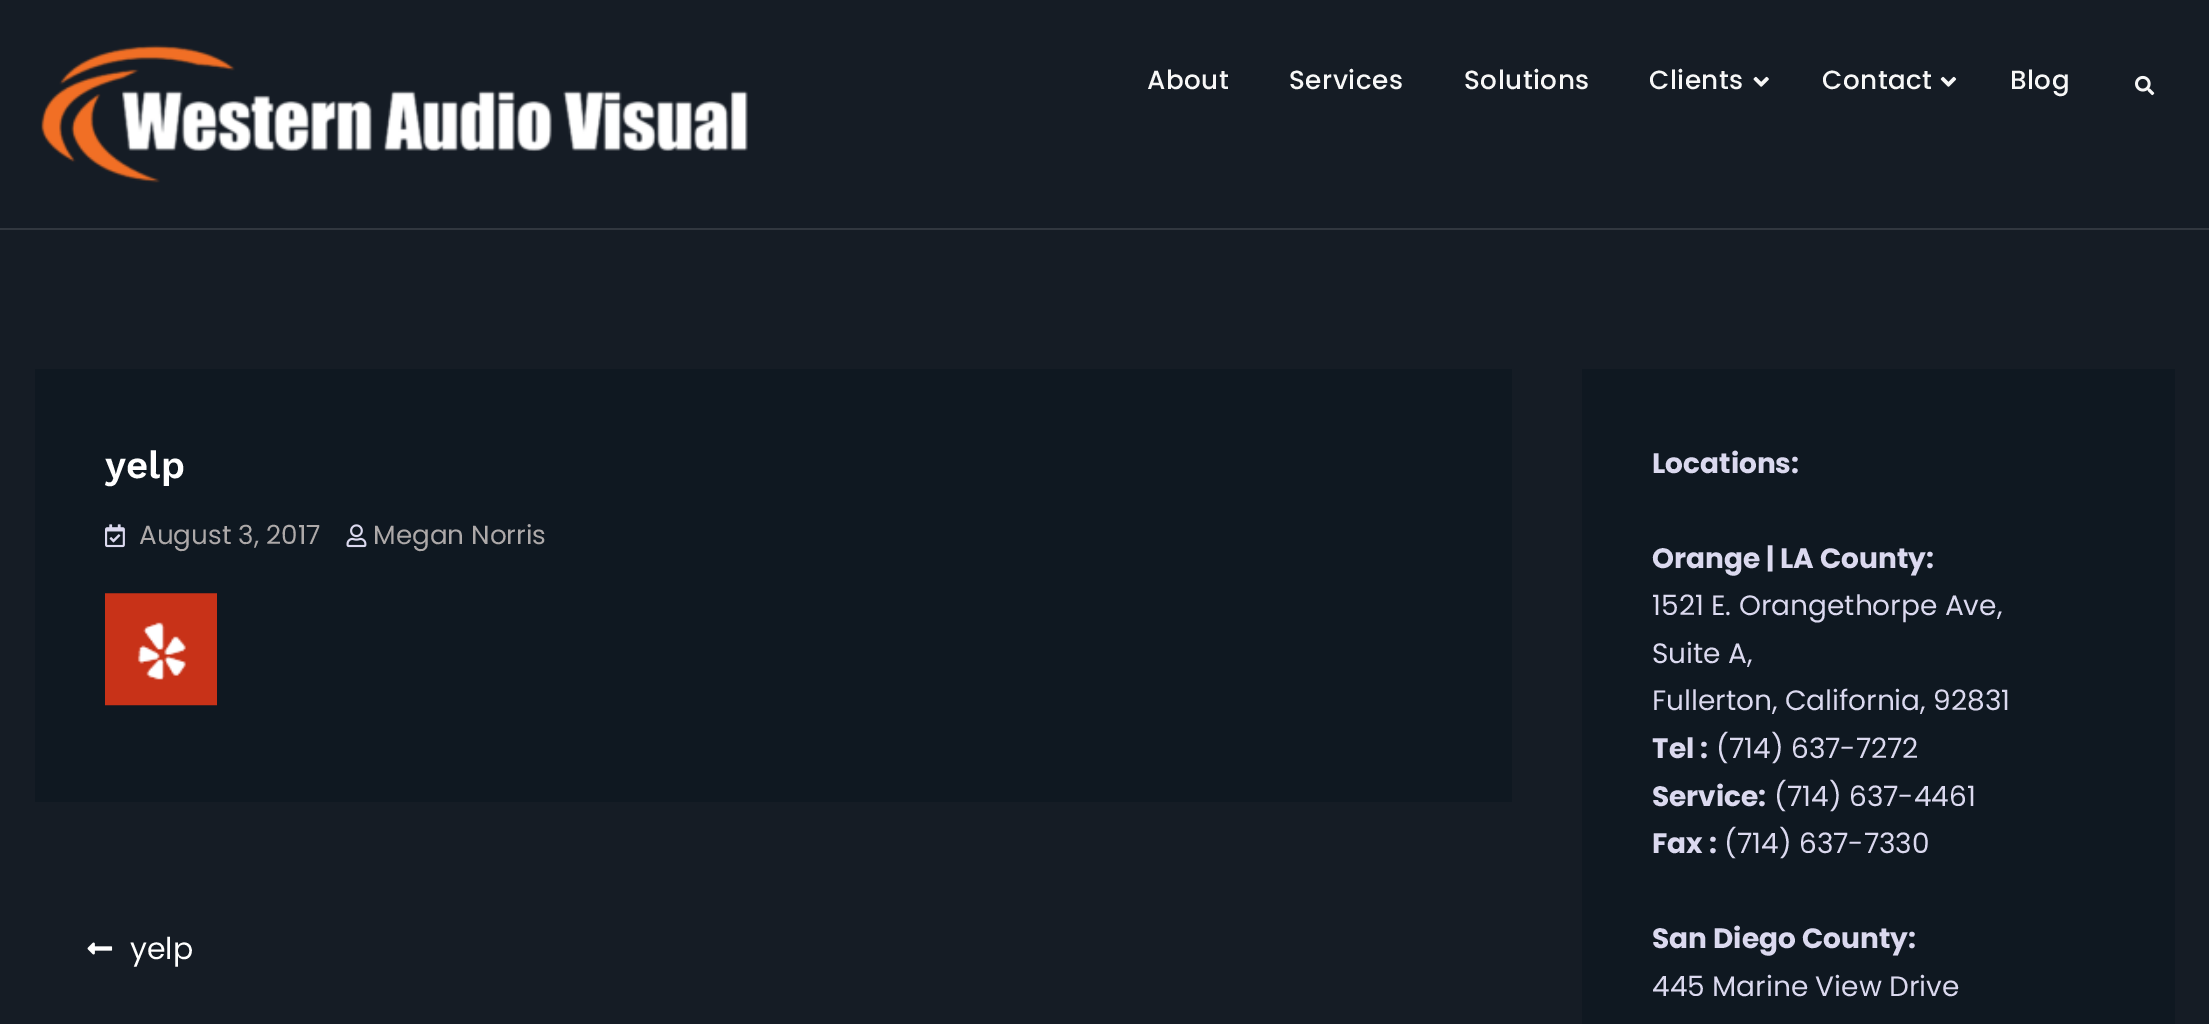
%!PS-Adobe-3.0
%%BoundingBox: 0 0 2209 1024
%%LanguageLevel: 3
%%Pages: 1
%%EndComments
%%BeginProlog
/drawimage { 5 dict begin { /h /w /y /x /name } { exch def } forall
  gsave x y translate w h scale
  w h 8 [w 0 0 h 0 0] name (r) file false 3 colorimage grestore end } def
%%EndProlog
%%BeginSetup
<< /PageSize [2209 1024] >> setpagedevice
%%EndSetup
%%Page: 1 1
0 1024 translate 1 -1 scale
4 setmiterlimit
0.082 0.11 0.145 setrgbcolor
0 0 2209 1024 rectfill
0.192 0.216 0.247 setrgbcolor
0 228 2209 2 rectfill
(images/1.raw) 41 45 707 138 drawimage
(images/2.raw) 1753 76 16 11 drawimage
(images/3.raw) 1940 76 17 11 drawimage
(images/4.raw) 2135 75 20 21 drawimage
0.059 0.094 0.129 setrgbcolor
35 369 1477 433 rectfill
(images/5.raw) 105 524 20 24 drawimage
(images/6.raw) 346 524 21 24 drawimage
(images/7.raw) 105 593 112 113 drawimage
(images/8.raw) 87 942 26 13 drawimage
1582 369 593 655 rectfill
/Poppins-Medium [26.25 0 0 -26.25 0 0] selectfont
0.969 setgray
1147 89 moveto 0.5 0 (About) ashow
1289 89 moveto 0.5 0 (Services) ashow
1464 89 moveto 0.5 0 (Solutions) ashow
1649 89 moveto 0.5 0 (Clients) ashow
1822 89 moveto 0.5 0 (Contact) ashow
2010 89 moveto 0.5 0 (Blog) ashow
/WorkSans-SemiBold [38.5 0 0 -38.5 0 0] selectfont
1 setgray
105 478 moveto (yelp) show
/Poppins-Regular [26.25 0 0 -26.25 0 0] selectfont
0.678 0.663 0.663 setrgbcolor
139 544 moveto (August 3, 2017) show
373 544 moveto (Megan Norris) show
/Poppins-Regular [30 0 0 -30 0 0] selectfont
1 setgray
130 959 moveto (yelp) show
/Poppins-Bold [28 0 0 -28 0 0] selectfont
0.859 0.851 0.937 setrgbcolor
1652 473 moveto (Locations:) show
1652 568 moveto (Orange | LA County:) show
/Poppins-Regular [28 0 0 -28 0 0] selectfont
1652 615 moveto (1521 E. Orangethorpe Ave,) show
1652 663 moveto (Suite A,) show
1652 710 moveto (Fullerton, California, 92831) show
/Poppins-Bold [28 0 0 -28 0 0] selectfont
1652 758 moveto (Tel :) show
/Poppins-Regular [28 0 0 -28 0 0] selectfont
1716 758 moveto (\(714\) 637-7272) show
/Poppins-Bold [28 0 0 -28 0 0] selectfont
1652 806 moveto (Service:) show
/Poppins-Regular [28 0 0 -28 0 0] selectfont
1774 806 moveto (\(714\) 637-4461) show
/Poppins-Bold [28 0 0 -28 0 0] selectfont
1652 853 moveto (Fax :) show
/Poppins-Regular [28 0 0 -28 0 0] selectfont
1724 853 moveto (\(714\) 637-7330) show
/Poppins-Bold [28 0 0 -28 0 0] selectfont
1652 948 moveto (San Diego County:) show
/Poppins-Regular [28 0 0 -28 0 0] selectfont
1652 996 moveto (445 Marine View Drive) show
showpage
%%EOF
